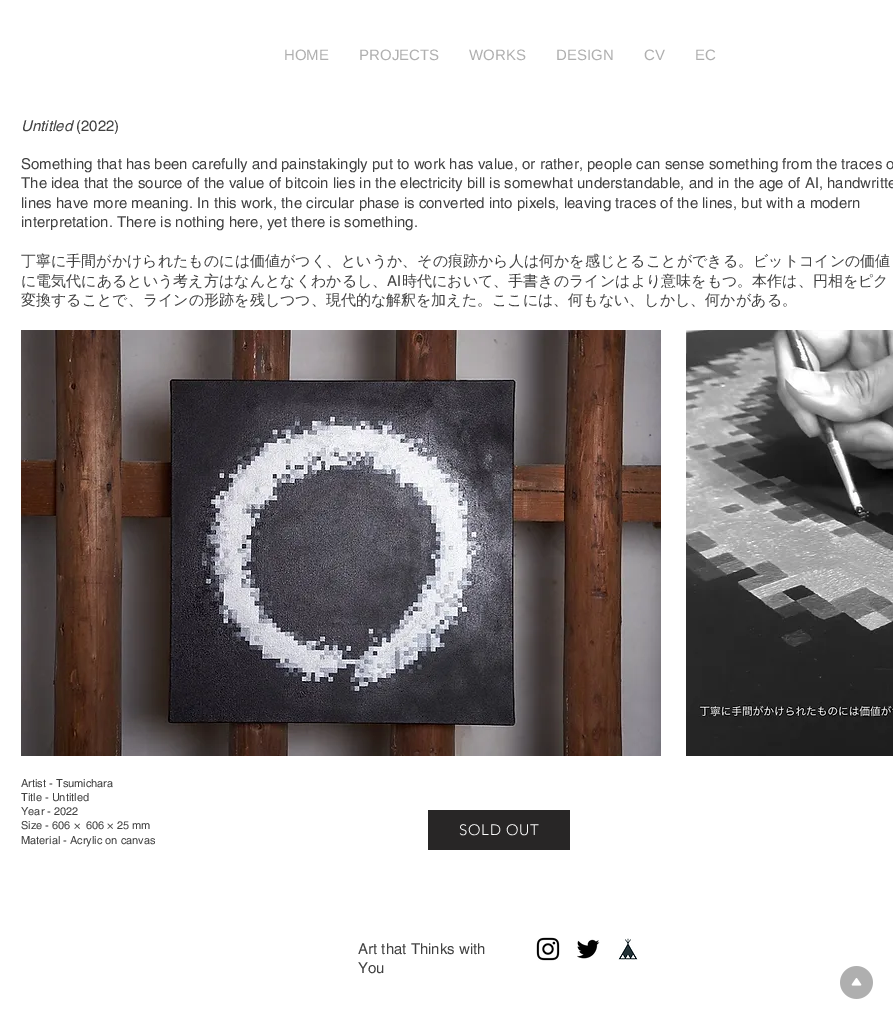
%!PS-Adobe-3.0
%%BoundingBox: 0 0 893 1019
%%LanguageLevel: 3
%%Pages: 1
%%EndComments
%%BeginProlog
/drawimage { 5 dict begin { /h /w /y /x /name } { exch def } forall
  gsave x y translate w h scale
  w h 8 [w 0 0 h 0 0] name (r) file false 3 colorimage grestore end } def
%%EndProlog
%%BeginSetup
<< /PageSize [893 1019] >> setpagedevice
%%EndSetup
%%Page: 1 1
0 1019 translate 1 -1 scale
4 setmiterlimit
1 setgray
0 0 893 1019 rectfill
(images/1.raw) 21 330 640 426 drawimage
(images/2.raw) 686 330 207 426 drawimage
0.157 0.149 0.149 setrgbcolor
428 810 142 40 rectfill
(images/3.raw) 536 937 24 24 drawimage
(images/4.raw) 577 939 23 20 drawimage
(images/5.raw) 618 938 20 22 drawimage
(images/6.raw) 840 966 33 33 drawimage
/LiberationSans-Regular [15 0 0 -15 0 0] selectfont
0.686 setgray
284 60 moveto (HOME) show
359 60 moveto (PROJECTS) show
469 60 moveto (WORKS) show
556 60 moveto (DESIGN) show
644 60 moveto (CV) show
695 60 moveto (EC) show
/helvetica-Italic [15 0 0 -15 0 0] selectfont
0.255 setgray
21 131 moveto (Untitled) show
/helvetica-Regular [15 0 0 -15 0 0] selectfont
76 131 moveto (\(2022\)) show
21 169 moveto (Something that has been carefully and painstakingly put to work has value, or rather, people can sense something from the traces o) show
21 188 moveto (The idea that the source of the value of bitcoin lies in the electricity bill is somewhat understandable, and in the age of AI, handwritte) show
21 208 moveto (lines have more meaning. In this work, the circular phase is converted into pixels, leaving traces of the lines, but with a modern) show
21 227 moveto (interpretation. There is nothing here, yet there is something.) show
/WenQuanYiZenHei-Medium [15 0 0 -15 0 0] selectfont
21 266 moveto (丁寧に手間がかけられたものには価値がつく、というか、その痕跡から人は何かを感じとることができる。ビットコインの価値) show
21 286 moveto (に電気代にあるという考え方はなんとなくわかるし、) show
/helvetica-Regular [15 0 0 -15 0 0] selectfont
387 286 moveto (AI) show
/WenQuanYiZenHei-Medium [15 0 0 -15 0 0] selectfont
402 286 moveto (時代において、手書きのラインはより意味をもつ。本作は、円相をピク) show
21 305 moveto (変換することで、ラインの形跡を残しつつ、現代的な解釈を加えた。ここには、何もない、しかし、何かがある。) show
/helvetica-Regular [11 0 0 -11 0 0] selectfont
21 787 moveto (Artist - Tsumichara) show
21 801 moveto (Title - Untitled) show
21 815 moveto (Year - 2022) show
21 829 moveto (Size - 606 ×  606 × 25 mm) show
21 844 moveto (Material - Acrylic on canvas) show
/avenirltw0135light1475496-Light [15 0 0 -15 0 0] selectfont
1 setgray
459 835 moveto 0.75 0 (SOLD OUT) ashow
/helvetica-Regular [15 0 0 -15 0 0] selectfont
0.255 setgray
358 954 moveto (Art that Thinks with) show
358 973 moveto (You) show
showpage
%%EOF
